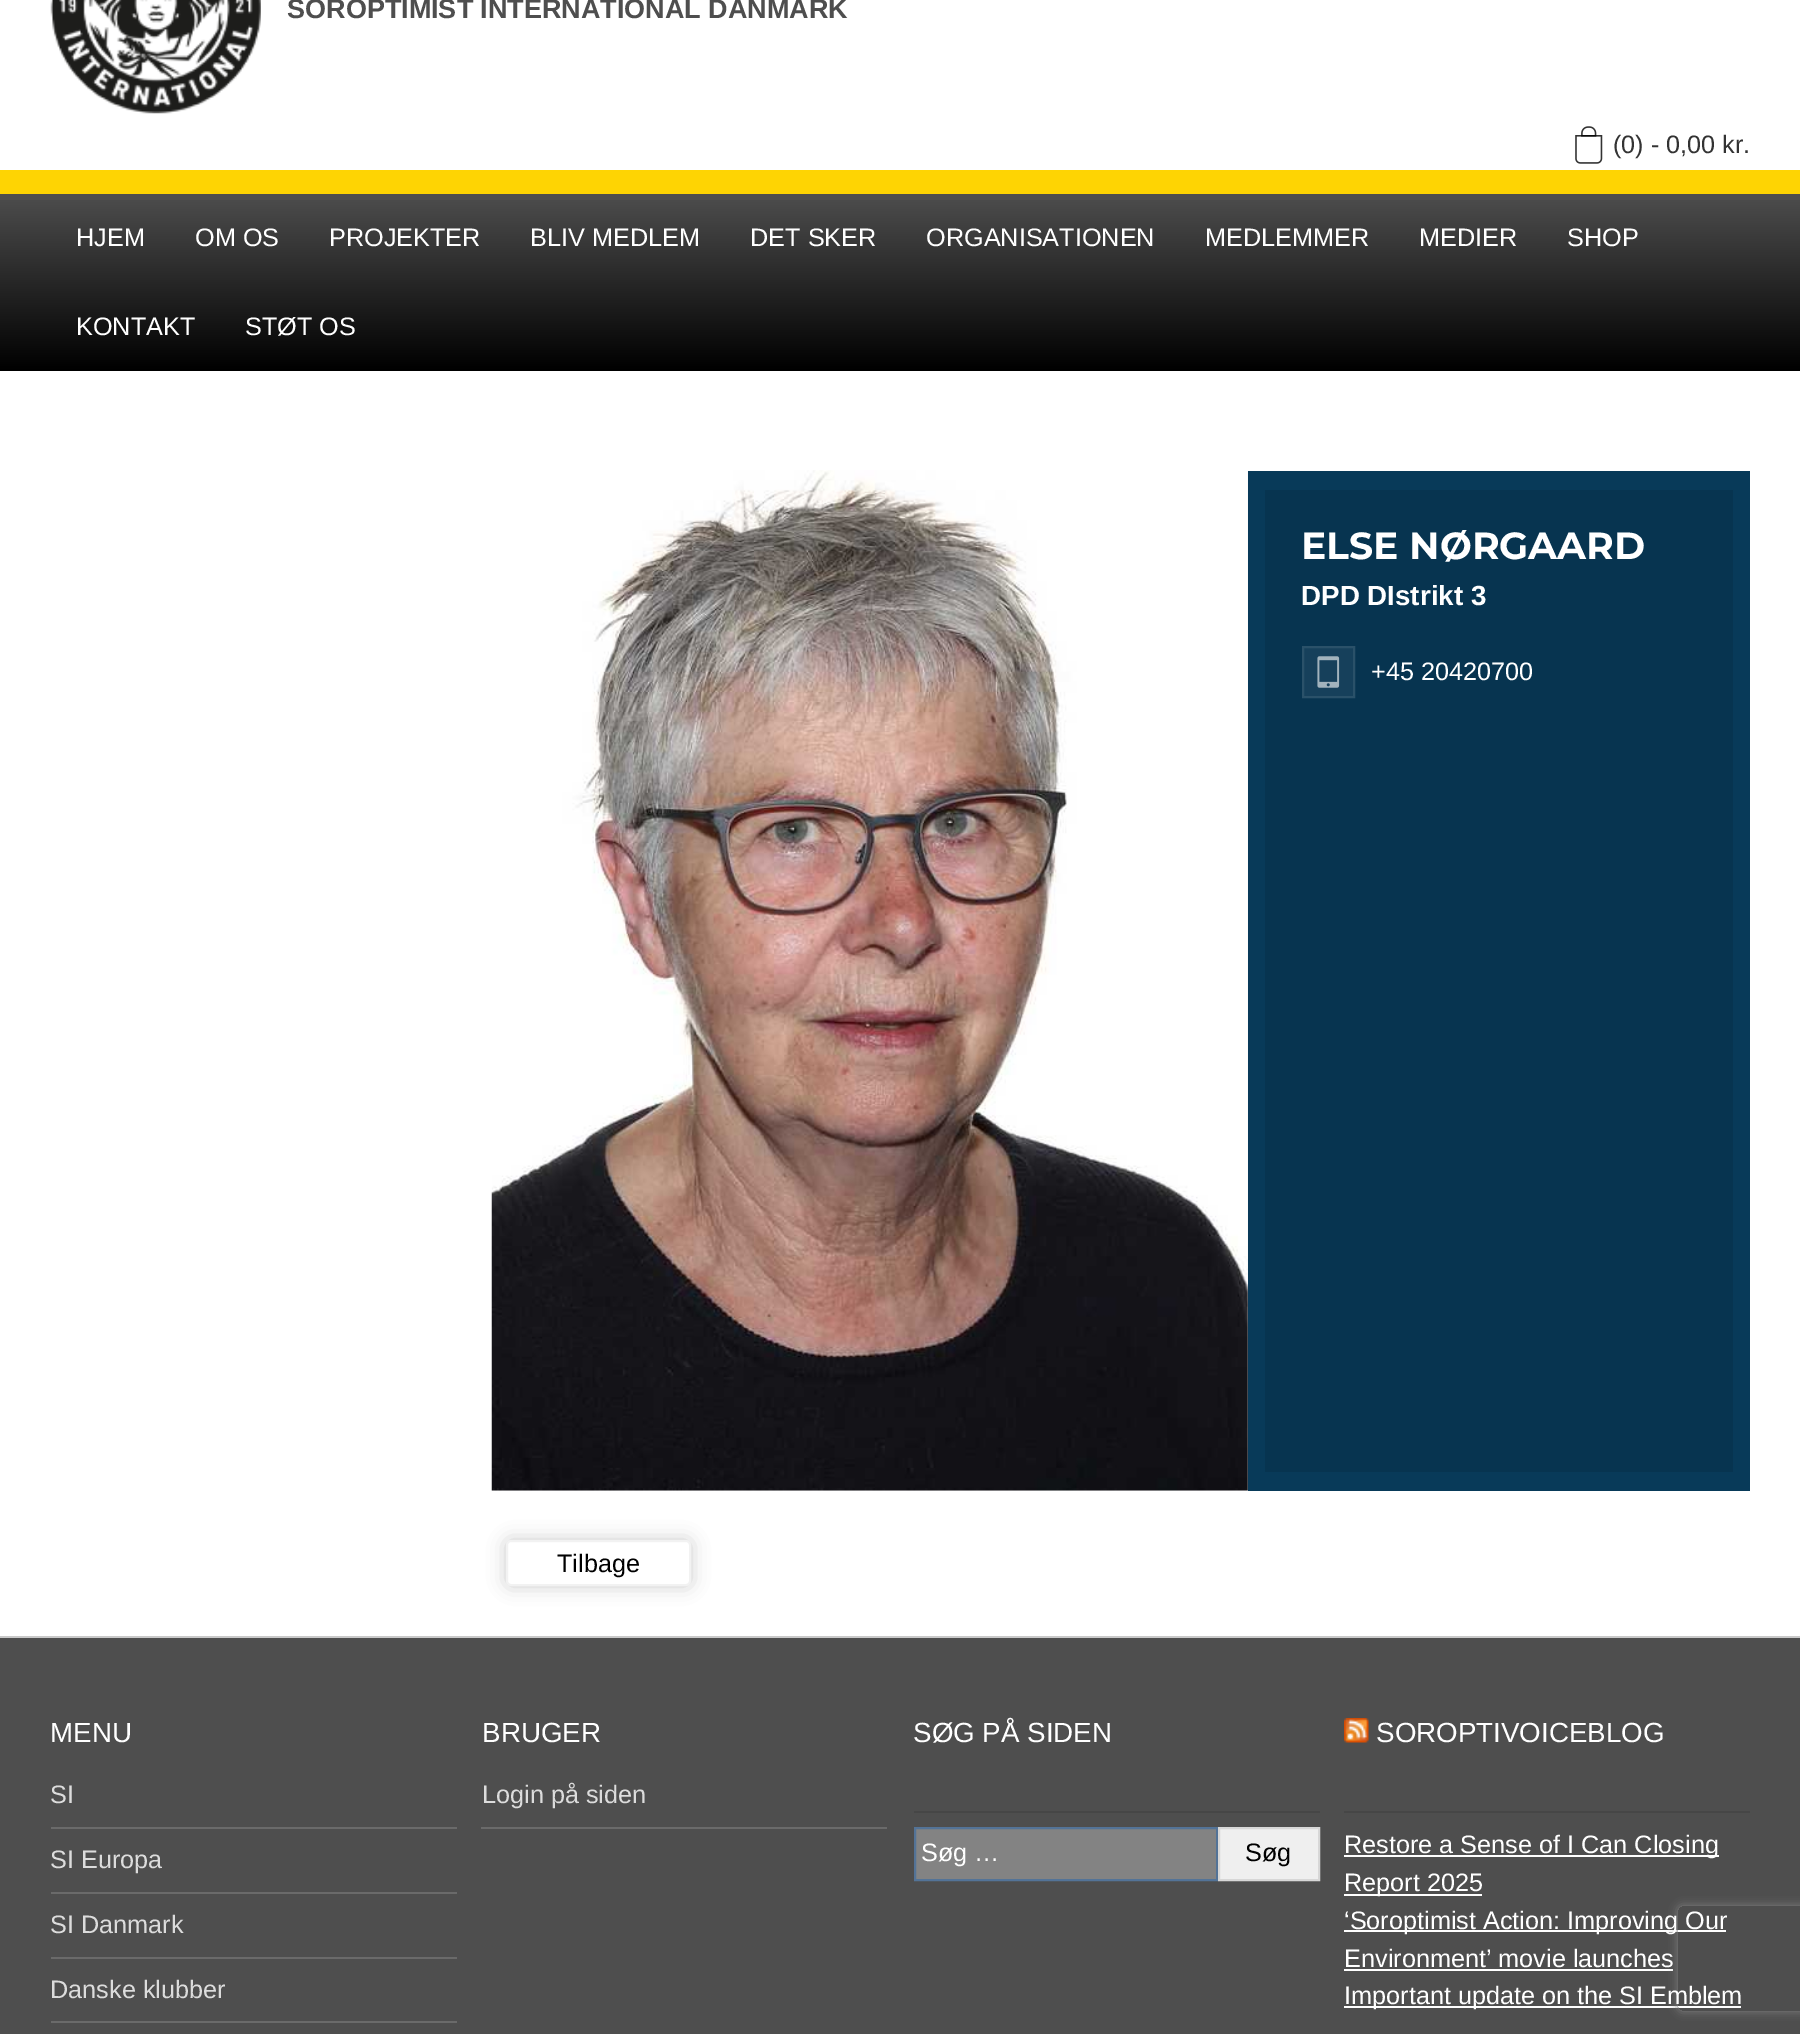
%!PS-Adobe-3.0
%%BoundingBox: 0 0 1800 2034
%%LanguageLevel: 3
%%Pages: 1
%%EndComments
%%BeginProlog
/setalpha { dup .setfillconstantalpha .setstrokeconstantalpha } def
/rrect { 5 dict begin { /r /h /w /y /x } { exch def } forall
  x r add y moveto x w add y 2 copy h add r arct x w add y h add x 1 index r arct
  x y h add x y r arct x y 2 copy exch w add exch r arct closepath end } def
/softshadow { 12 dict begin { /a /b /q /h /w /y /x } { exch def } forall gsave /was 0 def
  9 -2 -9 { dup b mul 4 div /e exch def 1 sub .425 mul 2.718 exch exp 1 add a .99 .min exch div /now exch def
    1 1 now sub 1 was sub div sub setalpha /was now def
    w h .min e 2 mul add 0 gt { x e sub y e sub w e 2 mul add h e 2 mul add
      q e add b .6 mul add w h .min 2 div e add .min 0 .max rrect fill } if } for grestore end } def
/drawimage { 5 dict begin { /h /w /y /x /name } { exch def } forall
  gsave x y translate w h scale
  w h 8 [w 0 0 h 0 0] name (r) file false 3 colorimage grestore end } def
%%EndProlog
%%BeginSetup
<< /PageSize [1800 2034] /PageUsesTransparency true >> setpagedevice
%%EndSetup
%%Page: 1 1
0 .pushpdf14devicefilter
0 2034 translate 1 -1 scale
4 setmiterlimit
0.306 setgray
0 0 1800 2034 rectfill
1 setgray
0 0 1800 170 rectfill
0.996 0.831 0.012 setrgbcolor
0 170 1800 24 rectfill
(images/1.raw) 50 0 211 114 drawimage
(images/2.raw) 1575 126 28 38 drawimage
gsave newpath 0 200 moveto 1800 200 lineto 1800 371 lineto 0 371 lineto closepath clip newpath
<< /ShadingType 2 /ColorSpace /DeviceRGB /Coords [900 194 900 371] /Extend [true true] /Function << /FunctionType 2 /Domain [0 1] /C0 [0.306 0.306 0.306] /C1 [0 0 0] /N 1 >> >> shfill grestore
1 setgray
0 371 1800 1265 rectfill
0.031 0.227 0.349 setrgbcolor
1248 471 502 1020 rectfill
0.949 setgray
492 471 756 1020 rectfill
(images/3.raw) 491 470 757 1021 drawimage
0.027 0.204 0.314 setrgbcolor
1265 490 468 982 rectfill
0.086 0.251 0.357 setrgbcolor
newpath 1303 647 moveto 1354 647 lineto 1354 697 lineto 1303 697 lineto closepath gsave fill grestore
0.165 0.318 0.412 setrgbcolor
2 setlinewidth
stroke
(images/4.raw) 1317 656 23 32 drawimage
0.2 setgray
506 1540 185 46 5 9 0.25 softshadow
1 setgray
507 1541 183 44 4 rrect gsave fill grestore
0.949 setgray
stroke
0.788 setgray
0 1636 1800 2 rectfill
0.416 setgray
51 1827 406 2 rectfill
51 1892 406 2 rectfill
51 1957 406 2 rectfill
51 2021 406 2 rectfill
481 1827 406 2 rectfill
0.275 setgray
914 1811 406 2 rectfill
0.514 setgray
newpath 915 1828 moveto 1217 1828 lineto 1217 1880 lineto 915 1880 lineto closepath gsave fill grestore
0.325 0.451 0.592 setrgbcolor
stroke
0.937 setgray
newpath 1219 1828 moveto 1319 1828 lineto 1319 1880 lineto 1219 1880 lineto closepath gsave fill grestore
0.843 setgray
stroke
0.275 setgray
1344 1811 406 2 rectfill
(images/5.raw) 1344 1718 25 25 drawimage
1 setgray
1344 1855 375 2 rectfill
1344 1894 138 2 rectfill
1344 1930 382 2 rectfill
1344 1969 329 2 rectfill
1344 2006 397 2 rectfill
gsave
newpath 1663 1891 moveto 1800 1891 lineto 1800 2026 lineto 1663 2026 lineto closepath 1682 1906 moveto 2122 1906 lineto 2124 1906 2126 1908 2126 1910 curveto 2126 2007 lineto 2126 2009 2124 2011 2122 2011 curveto 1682 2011 lineto 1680 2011 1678 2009 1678 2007 curveto 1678 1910 lineto 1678 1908 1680 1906 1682 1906 curveto closepath eoclip newpath
0.502 setgray
1678 1906 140 105 4 4.5 1 softshadow
grestore
/LiberationSans-Bold [27 0 0 -27 0 0] selectfont
0.306 setgray
287 18 moveto (SOROPTIMIST INTERNATIONAL DANMARK) show
/LiberationSans-Regular [25.25 0 0 -25.25 0 0] selectfont
0.2 setgray
1613 153 moveto (\(0\) - 0,00 kr.) show
1 setgray
76 246 moveto (HJEM) show
195 246 moveto (OM OS) show
329 246 moveto (PROJEKTER) show
530 246 moveto (BLIV MEDLEM) show
750 246 moveto (DET SKER) show
926 246 moveto (ORGANISATIONEN) show
1205 246 moveto (MEDLEMMER) show
1419 246 moveto (MEDIER) show
1567 246 moveto (SHOP) show
76 335 moveto (KONTAKT) show
245 335 moveto (STØT OS) show
/Montserrat-Thin [37.75 0 0 -37.75 0 0] selectfont
1301 559 moveto (ELSE NØRGAARD) show
/LiberationSans-Bold [27.75 0 0 -27.75 0 0] selectfont
1301 605 moveto (DPD DIstrikt 3) show
/LiberationSans-Regular [25.25 0 0 -25.25 0 0] selectfont
1371 680 moveto (+45 20420700) show
0 setgray
557 1572 moveto (Tilbage) show
/LiberationSans-Regular [27.75 0 0 -27.75 0 0] selectfont
1 setgray
50 1742 moveto (MENU) show
/LiberationSans-Regular [25.25 0 0 -25.25 0 0] selectfont
0.863 setgray
50 1803 moveto (SI) show
50 1868 moveto (SI Europa) show
50 1933 moveto (SI Danmark) show
50 1998 moveto (Danske klubber) show
/LiberationSans-Regular [27.75 0 0 -27.75 0 0] selectfont
1 setgray
482 1742 moveto (BRUGER) show
/LiberationSans-Regular [25.25 0 0 -25.25 0 0] selectfont
0.863 setgray
482 1803 moveto (Login på siden) show
/LiberationSans-Regular [27.75 0 0 -27.75 0 0] selectfont
1 setgray
913 1742 moveto (SØG PÅ SIDEN) show
/LiberationSans-Regular [25.25 0 0 -25.25 0 0] selectfont
921 1861 moveto (Søg …) show
0 setgray
1245 1861 moveto (Søg) show
/LiberationSans-Regular [27.75 0 0 -27.75 0 0] selectfont
1 setgray
1376 1742 moveto (SOROPTIVOICEBLOG) show
/LiberationSans-Regular [25.25 0 0 -25.25 0 0] selectfont
1344 1853 moveto (Restore a Sense of I Can Closing) show
1344 1891 moveto (Report 2025) show
1344 1929 moveto (‘Soroptimist Action: Improving Our) show
1344 1967 moveto (Environment’ movie launches) show
1344 2004 moveto (Important update on the SI Emblem) show
.poppdf14devicefilter showpage
%%EOF
